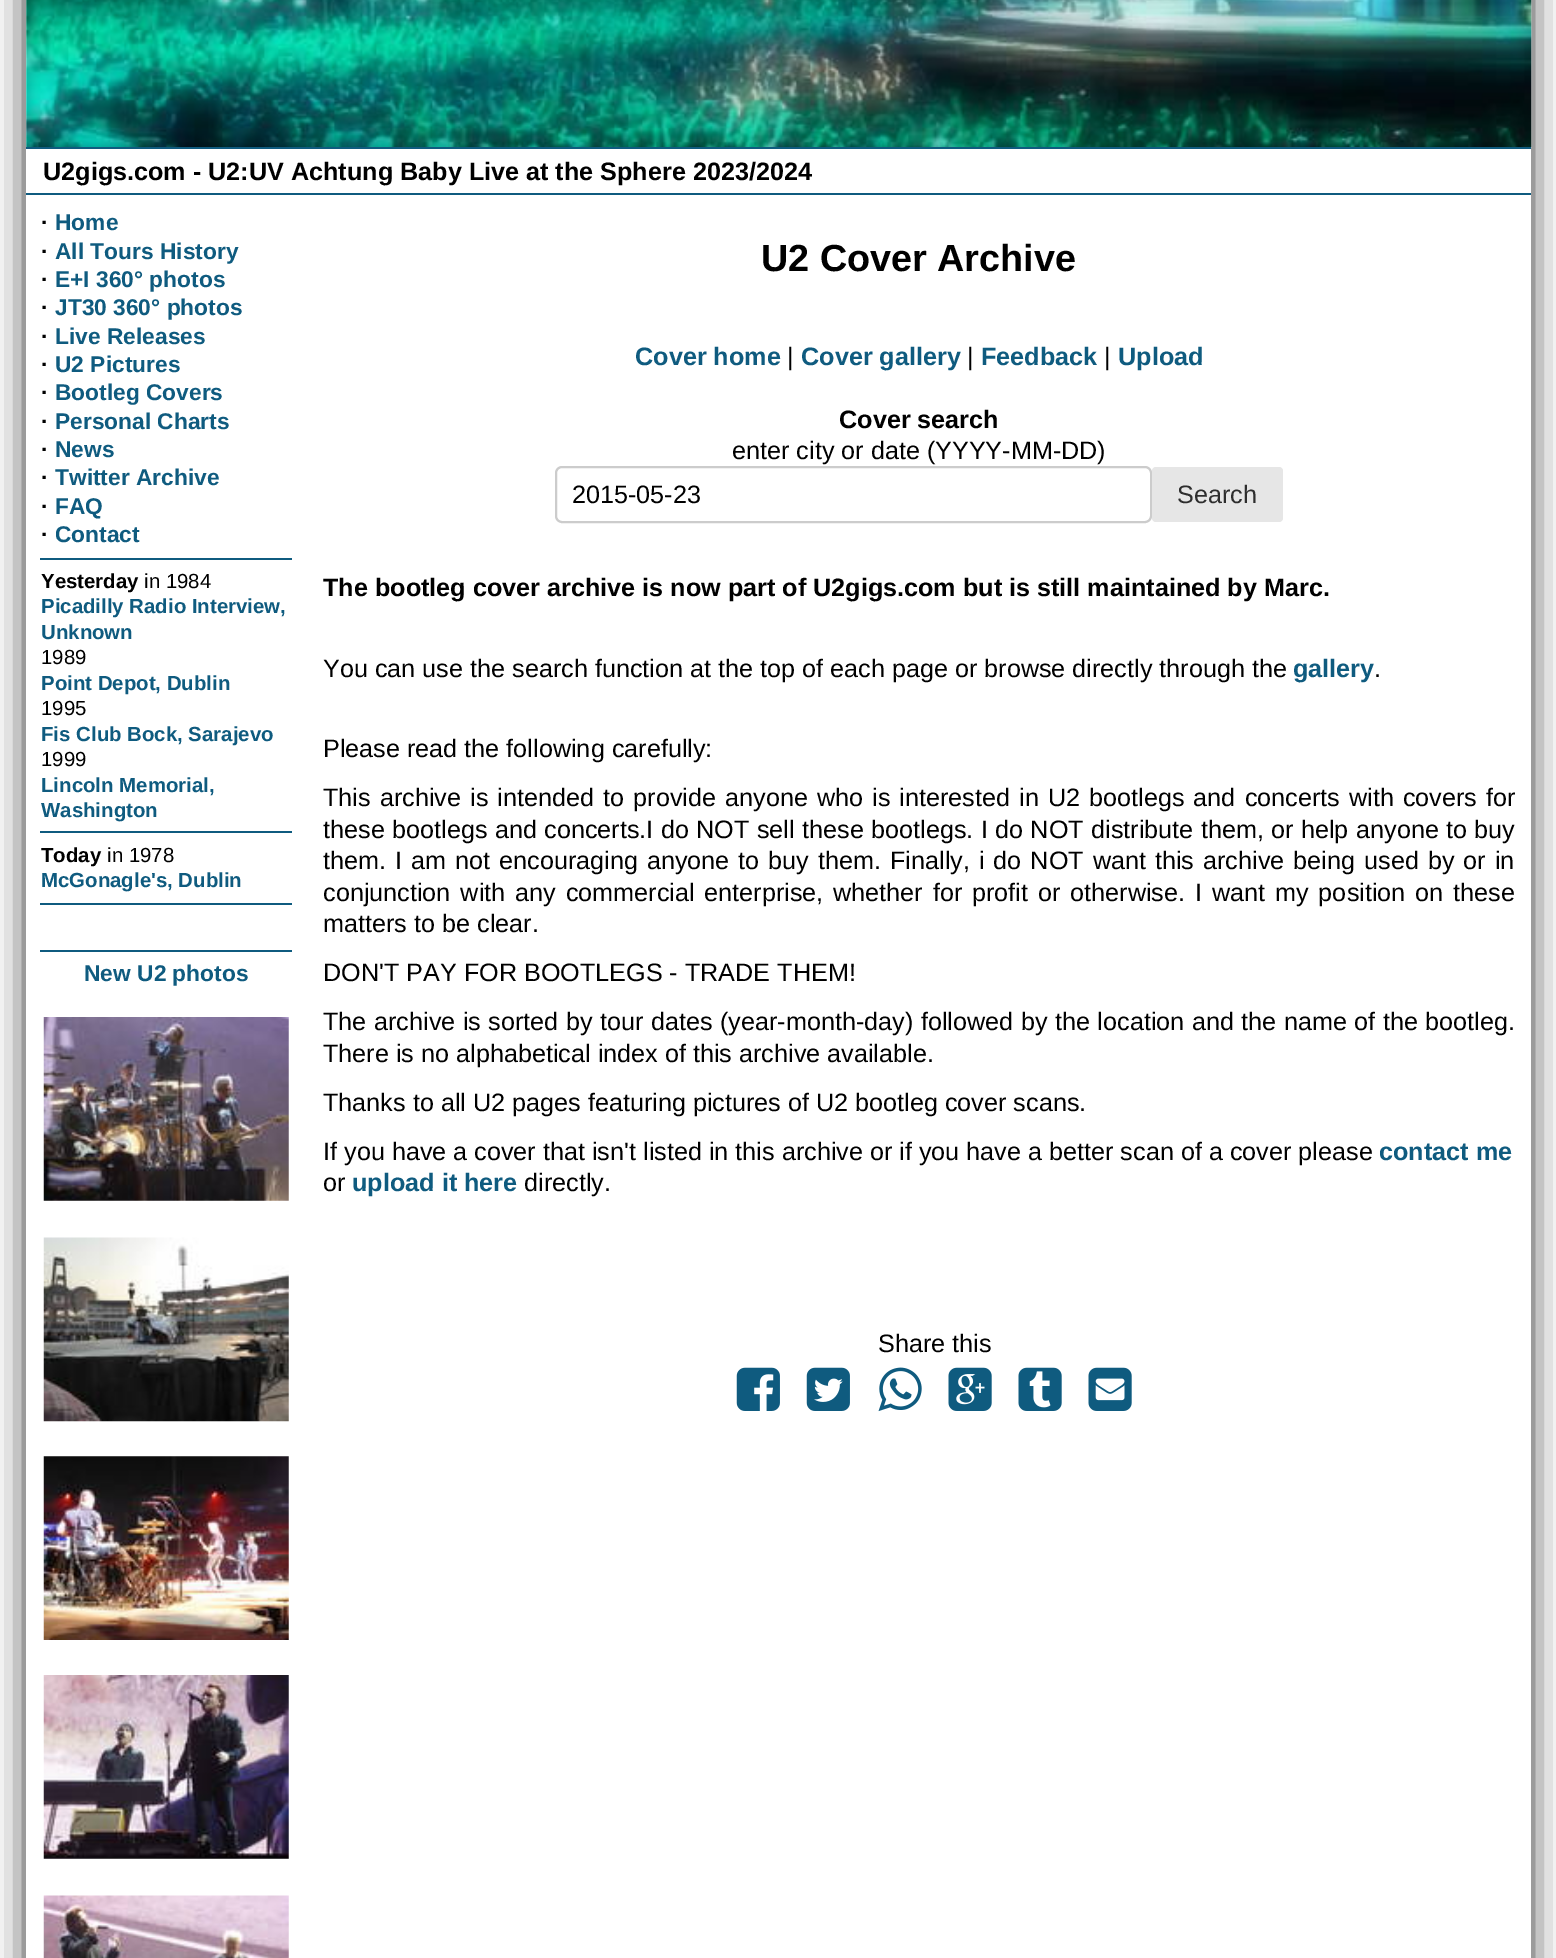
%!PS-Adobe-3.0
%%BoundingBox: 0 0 1556 1958
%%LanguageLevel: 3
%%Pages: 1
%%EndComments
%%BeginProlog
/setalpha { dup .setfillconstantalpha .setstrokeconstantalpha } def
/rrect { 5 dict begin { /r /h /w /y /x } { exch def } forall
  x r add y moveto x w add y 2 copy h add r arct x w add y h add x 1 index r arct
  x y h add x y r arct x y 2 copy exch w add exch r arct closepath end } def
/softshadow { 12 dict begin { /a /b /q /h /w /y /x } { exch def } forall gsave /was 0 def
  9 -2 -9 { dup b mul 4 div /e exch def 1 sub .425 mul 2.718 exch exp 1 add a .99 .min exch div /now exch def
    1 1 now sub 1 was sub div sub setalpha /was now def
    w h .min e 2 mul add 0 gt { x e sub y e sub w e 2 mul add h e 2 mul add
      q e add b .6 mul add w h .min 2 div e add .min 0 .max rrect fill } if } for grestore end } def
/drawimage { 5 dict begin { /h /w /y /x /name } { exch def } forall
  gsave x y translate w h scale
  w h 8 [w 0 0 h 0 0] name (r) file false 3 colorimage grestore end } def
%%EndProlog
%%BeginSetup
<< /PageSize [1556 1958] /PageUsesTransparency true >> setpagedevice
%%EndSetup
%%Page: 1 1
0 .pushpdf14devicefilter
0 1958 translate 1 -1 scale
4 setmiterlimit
1 setgray
0 0 1556 1958 rectfill
gsave
newpath 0 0 moveto 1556 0 lineto 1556 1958 lineto 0 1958 lineto closepath 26 -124 moveto 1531 -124 lineto 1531 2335 lineto 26 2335 lineto closepath eoclip newpath
0.2 setgray
26 -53 1505 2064 0 17.5 1 softshadow
grestore
(images/1.raw) 26 0 1506 148 drawimage
0.059 0.357 0.498 setrgbcolor
26 147 1505 2 rectfill
26 193 1505 2 rectfill
40 558 252 2 rectfill
40 831 252 2 rectfill
40 903 252 2 rectfill
40 950 252 2 rectfill
(images/2.raw) 43 1017 246 184 drawimage
(images/3.raw) 43 1237 246 185 drawimage
(images/4.raw) 43 1456 246 184 drawimage
(images/5.raw) 43 1675 246 184 drawimage
(images/6.raw) 43 1895 246 63 drawimage
0.8 setgray
2 setlinewidth
556 467 595 55 6 rrect stroke
0.902 setgray
1152 467 131 55 4 rrect fill
(images/7.raw) 736 1367 44 44 drawimage
(images/8.raw) 806 1367 44 44 drawimage
(images/9.raw) 878 1367 44 45 drawimage
(images/10.raw) 948 1367 44 44 drawimage
(images/11.raw) 1018 1367 44 44 drawimage
(images/12.raw) 1088 1367 44 44 drawimage
/LiberationSans-Bold [25.2 0 0 -25.2 0 0] selectfont
0 setgray
43 180 moveto (U2gigs.com - U2:UV Achtung Baby Live at the Sphere 2023/2024) show
/LiberationSans-Bold [22.75 0 0 -22.75 0 0] selectfont
41 230 moveto (·) show
0.059 0.357 0.498 setrgbcolor
55 230 moveto (Home) show
0 setgray
41 259 moveto (·) show
0.059 0.357 0.498 setrgbcolor
55 259 moveto (All Tours History) show
0 setgray
41 287 moveto (·) show
0.059 0.357 0.498 setrgbcolor
55 287 moveto (E+I 360° photos) show
0 setgray
41 315 moveto (·) show
0.059 0.357 0.498 setrgbcolor
55 315 moveto (JT30 360° photos) show
0 setgray
41 344 moveto (·) show
0.059 0.357 0.498 setrgbcolor
55 344 moveto (Live Releases) show
0 setgray
41 372 moveto (·) show
0.059 0.357 0.498 setrgbcolor
55 372 moveto (U2 Pictures) show
0 setgray
41 400 moveto (·) show
0.059 0.357 0.498 setrgbcolor
55 400 moveto (Bootleg Covers) show
0 setgray
41 429 moveto (·) show
0.059 0.357 0.498 setrgbcolor
55 429 moveto (Personal Charts) show
0 setgray
41 457 moveto (·) show
0.059 0.357 0.498 setrgbcolor
55 457 moveto (News) show
0 setgray
41 485 moveto (·) show
0.059 0.357 0.498 setrgbcolor
55 485 moveto (Twitter Archive) show
0 setgray
41 514 moveto (·) show
0.059 0.357 0.498 setrgbcolor
55 514 moveto (FAQ) show
0 setgray
41 542 moveto (·) show
0.059 0.357 0.498 setrgbcolor
55 542 moveto (Contact) show
/LiberationSans-Bold [20.4 0 0 -20.4 0 0] selectfont
0 setgray
41 588 moveto (Yesterday) show
/LiberationSans-Regular [20.4 0 0 -20.4 0 0] selectfont
144 588 moveto (in 1984) show
/LiberationSans-Bold [20.4 0 0 -20.4 0 0] selectfont
0.059 0.357 0.498 setrgbcolor
41 613 moveto (Picadilly Radio Interview,) show
41 639 moveto (Unknown) show
/LiberationSans-Regular [20.4 0 0 -20.4 0 0] selectfont
0 setgray
41 664 moveto (1989) show
/LiberationSans-Bold [20.4 0 0 -20.4 0 0] selectfont
0.059 0.357 0.498 setrgbcolor
41 690 moveto (Point Depot, Dublin) show
/LiberationSans-Regular [20.4 0 0 -20.4 0 0] selectfont
0 setgray
41 715 moveto (1995) show
/LiberationSans-Bold [20.4 0 0 -20.4 0 0] selectfont
0.059 0.357 0.498 setrgbcolor
41 741 moveto (Fis Club Bock, Sarajevo) show
/LiberationSans-Regular [20.4 0 0 -20.4 0 0] selectfont
0 setgray
41 766 moveto (1999) show
/LiberationSans-Bold [20.4 0 0 -20.4 0 0] selectfont
0.059 0.357 0.498 setrgbcolor
41 792 moveto (Lincoln Memorial,) show
41 817 moveto (Washington) show
0 setgray
41 862 moveto (Today) show
/LiberationSans-Regular [20.4 0 0 -20.4 0 0] selectfont
107 862 moveto (in 1978) show
/LiberationSans-Bold [20.4 0 0 -20.4 0 0] selectfont
0.059 0.357 0.498 setrgbcolor
41 887 moveto (McGonagle's, Dublin) show
/LiberationSans-Bold [22.75 0 0 -22.75 0 0] selectfont
84 981 moveto (New U2 photos) show
/LiberationSans-Bold [37.75 0 0 -37.75 0 0] selectfont
0 setgray
761 271 moveto (U2 Cover Archive) show
/LiberationSans-Bold [25.2 0 0 -25.2 0 0] selectfont
0.059 0.357 0.498 setrgbcolor
635 365 moveto (Cover home) show
/LiberationSans-Regular [25.2 0 0 -25.2 0 0] selectfont
0 setgray
787 365 moveto (|) show
/LiberationSans-Bold [25.2 0 0 -25.2 0 0] selectfont
0.059 0.357 0.498 setrgbcolor
801 365 moveto (Cover gallery) show
/LiberationSans-Regular [25.2 0 0 -25.2 0 0] selectfont
0 setgray
967 365 moveto (|) show
/LiberationSans-Bold [25.2 0 0 -25.2 0 0] selectfont
0.059 0.357 0.498 setrgbcolor
981 365 moveto (Feedback) show
/LiberationSans-Regular [25.2 0 0 -25.2 0 0] selectfont
0 setgray
1104 365 moveto (|) show
/LiberationSans-Bold [25.2 0 0 -25.2 0 0] selectfont
0.059 0.357 0.498 setrgbcolor
1118 365 moveto (Upload) show
0 setgray
839 428 moveto (Cover search) show
/LiberationSans-Regular [25.2 0 0 -25.2 0 0] selectfont
732 459 moveto (enter city or date \(YYYY-MM-DD\)) show
572 503 moveto (2015-05-23) show
0.18 setgray
1177 503 moveto (Search) show
/LiberationSans-Bold [25.2 0 0 -25.2 0 0] selectfont
0 setgray
323 596 moveto (The bootleg cover archive is now part of U2gigs.com but is still maintained by Marc.) show
/LiberationSans-Regular [25.2 0 0 -25.2 0 0] selectfont
323 677 moveto (You can use the search function at the top of each page or browse directly through the) show
/LiberationSans-Bold [25.2 0 0 -25.2 0 0] selectfont
0.059 0.357 0.498 setrgbcolor
1293 677 moveto (gallery) show
/LiberationSans-Regular [25.2 0 0 -25.2 0 0] selectfont
0 setgray
1374 677 moveto (.) show
323 757 moveto (Please read the following carefully:) show
323 806 moveto 2.1 0 32 (This archive is intended to provide anyone who is interested in U2 bootlegs and concerts with covers for) widthshow
323 838 moveto 0.4 0 32 (these bootlegs and concerts.I do NOT sell these bootlegs. I do NOT distribute them, or help anyone to buy) widthshow
323 869 moveto 2 0 32 (them. I am not encouraging anyone to buy them. Finally, i do NOT want this archive being used by or in) widthshow
323 901 moveto 2.9 0 32 (conjunction with any commercial enterprise, whether for profit or otherwise. I want my position on these) widthshow
323 932 moveto (matters to be clear.) show
323 981 moveto (DON'T PAY FOR BOOTLEGS - TRADE THEM!) show
323 1030 moveto 0.5 0 32 (The archive is sorted by tour dates \(year-month-day\) followed by the location and the name of the bootleg.) widthshow
323 1062 moveto (There is no alphabetical index of this archive available.) show
323 1111 moveto (Thanks to all U2 pages featuring pictures of U2 bootleg cover scans.) show
323 1160 moveto (If you have a cover that isn't listed in this archive or if you have a better scan of a cover please) show
/LiberationSans-Bold [25.2 0 0 -25.2 0 0] selectfont
0.059 0.357 0.498 setrgbcolor
1379 1160 moveto (contact me) show
/LiberationSans-Regular [25.2 0 0 -25.2 0 0] selectfont
0 setgray
323 1191 moveto (or) show
/LiberationSans-Bold [25.2 0 0 -25.2 0 0] selectfont
0.059 0.357 0.498 setrgbcolor
352 1191 moveto (upload it here) show
/LiberationSans-Regular [25.2 0 0 -25.2 0 0] selectfont
0 setgray
524 1191 moveto (directly.) show
878 1352 moveto (Share this) show
.poppdf14devicefilter showpage
%%EOF
